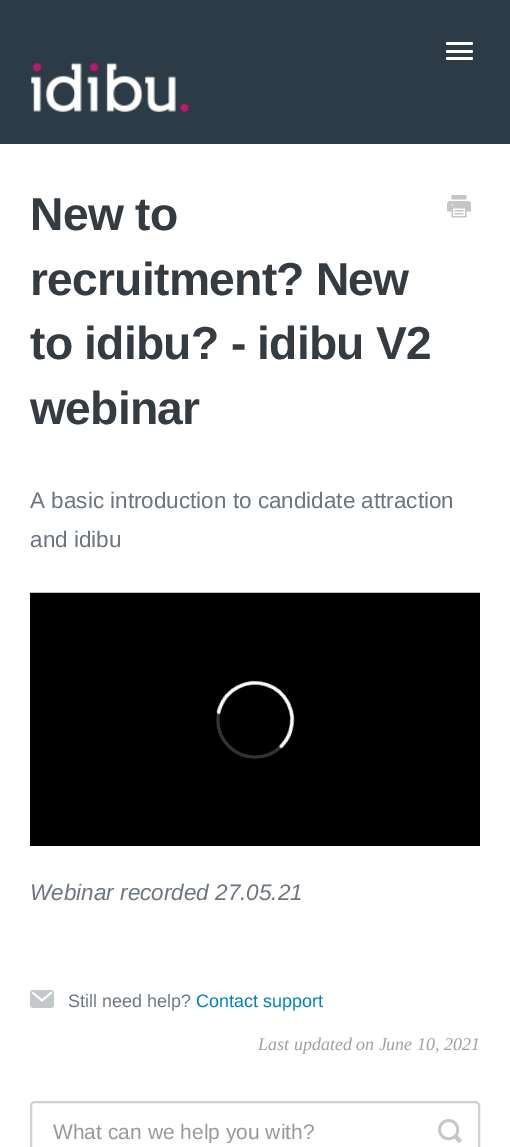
%!PS-Adobe-3.0
%%BoundingBox: 0 0 510 1147
%%LanguageLevel: 3
%%Pages: 1
%%EndComments
%%BeginProlog
/rrect { 5 dict begin { /r /h /w /y /x } { exch def } forall
  x r add y moveto x w add y 2 copy h add r arct x w add y h add x 1 index r arct
  x y h add x y r arct x y 2 copy exch w add exch r arct closepath end } def
/drawimage { 5 dict begin { /h /w /y /x /name } { exch def } forall
  gsave x y translate w h scale
  w h 8 [w 0 0 h 0 0] name (r) file false 3 colorimage grestore end } def
%%EndProlog
%%BeginSetup
<< /PageSize [510 1147] >> setpagedevice
%%EndSetup
%%Page: 1 1
0 1147 translate 1 -1 scale
4 setmiterlimit
1 setgray
0 0 510 1147 rectfill
0.173 0.231 0.275 setrgbcolor
0 0 510 144 rectfill
1 setgray
446 42 27 3 1.5 rrect fill
446 50 27 3 1.5 rrect fill
446 57 27 3 1.5 rrect fill
(images/1.raw) 31 62 159 50 drawimage
(images/2.raw) 447 195 24 23 drawimage
(images/3.raw) 30 592 450 254 drawimage
(images/4.raw) 30 990 24 18 drawimage
0.816 setgray
2 setlinewidth
31 1102 448 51 4 rrect stroke
(images/5.raw) 438 1119 24 24 drawimage
/LiberationSans-Bold [46.25 0 0 -46.25 0 0] selectfont
0.204 0.231 0.255 setrgbcolor
30 230 moveto -0.75 0 (New to) ashow
30 295 moveto -0.75 0 (recruitment? New) ashow
30 359 moveto -0.75 0 (to idibu? - idibu V2) ashow
30 424 moveto -0.75 0 (webinar) ashow
/LiberationSans-Regular [22.5 0 0 -22.5 0 0] selectfont
0.427 0.463 0.494 setrgbcolor
30 508 moveto (A basic introduction to candidate attraction) show
30 547 moveto (and idibu) show
/LiberationSans-Italic [22.5 0 0 -22.5 0 0] selectfont
30 900 moveto (Webinar recorded 27.05.21) show
/LiberationSans-Regular [18 0 0 -18 0 0] selectfont
68 1007 moveto (Still need help?) show
0 0.506 0.725 setrgbcolor
196 1007 moveto (Contact support) show
/LiberationSerif-Italic [18 0 0 -18 0 0] selectfont
0.627 setgray
258 1050 moveto (Last updated on June 10, 2021) show
gsave
53 1119 373 24 rectclip
/LiberationSans-Regular [21 0 0 -21 0 0] selectfont
0.6 setgray
53 1139 moveto (What can we help you with?) show
grestore
showpage
%%EOF
